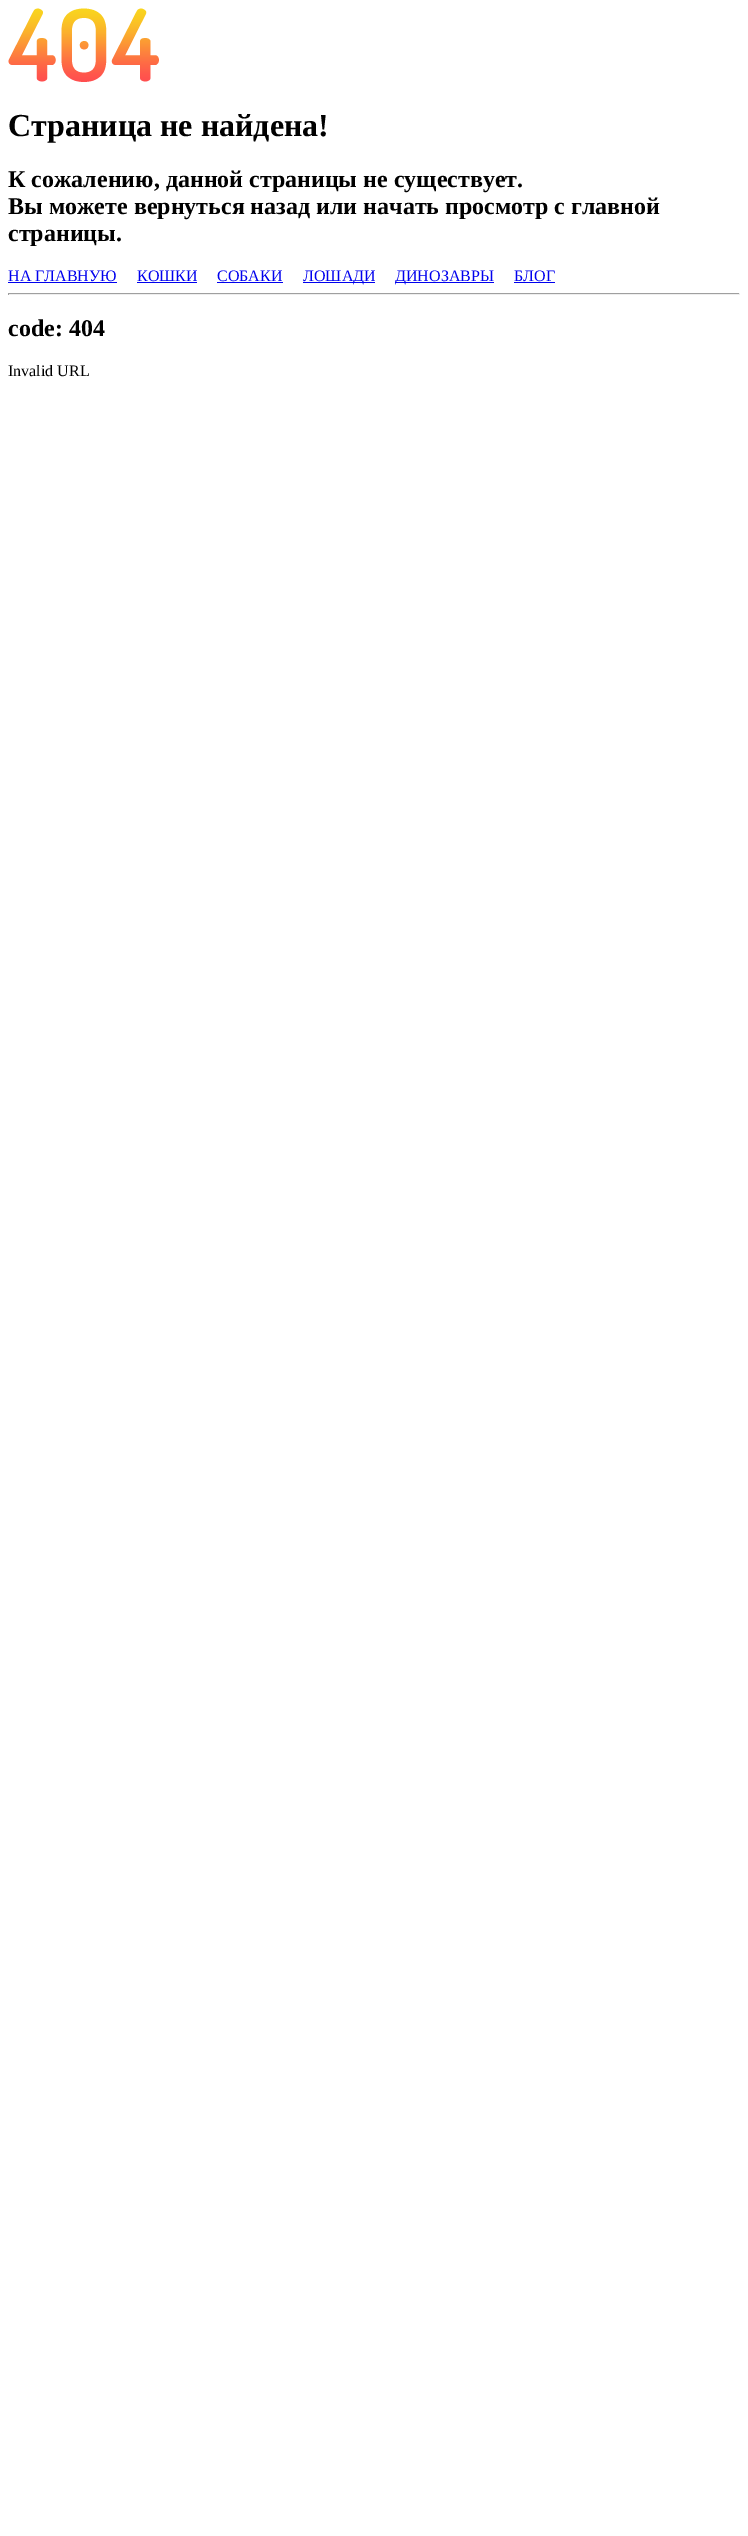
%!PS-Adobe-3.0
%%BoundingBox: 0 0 748 2536
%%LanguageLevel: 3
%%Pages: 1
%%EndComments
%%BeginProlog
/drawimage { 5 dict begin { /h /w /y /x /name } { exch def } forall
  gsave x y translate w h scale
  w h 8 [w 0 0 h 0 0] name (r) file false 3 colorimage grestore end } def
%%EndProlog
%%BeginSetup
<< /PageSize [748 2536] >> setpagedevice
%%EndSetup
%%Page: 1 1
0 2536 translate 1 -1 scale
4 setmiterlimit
1 setgray
0 0 748 2536 rectfill
(images/1.raw) 8 8 151 74 drawimage
0 0 0.933 setrgbcolor
8 282 109 1 rectfill
137 282 60 1 rectfill
217 282 66 1 rectfill
303 282 72 1 rectfill
395 282 99 1 rectfill
514 282 41 1 rectfill
0.624 setgray
8 293 732 1 rectfill
0.933 setgray
739 293 1 2 rectfill
8 294 732 1 rectfill
0.624 setgray
8 293 1 2 rectfill
/LiberationSerif-Bold [32 0 0 -32 0 0] selectfont
0 setgray
8 136 moveto (Cтраница не найдена!) show
/LiberationSerif-Bold [24 0 0 -24 0 0] selectfont
8 187 moveto (К сожалению, данной страницы не существует.) show
8 214 moveto (Вы можете вернуться назад или начать просмотр с главной) show
8 241 moveto (страницы.) show
/LiberationSerif-Regular [16 0 0 -16 0 0] selectfont
0 0 0.933 setrgbcolor
8 281 moveto (НА ГЛАВНУЮ) show
137 281 moveto (КОШКИ) show
217 281 moveto (СОБАКИ) show
303 281 moveto (ЛОШАДИ) show
395 281 moveto (ДИНОЗАВРЫ) show
514 281 moveto (БЛОГ) show
/LiberationSerif-Bold [24 0 0 -24 0 0] selectfont
0 setgray
8 336 moveto (code: 404) show
/LiberationSerif-Regular [16 0 0 -16 0 0] selectfont
8 376 moveto (Invalid URL) show
showpage
%%EOF
